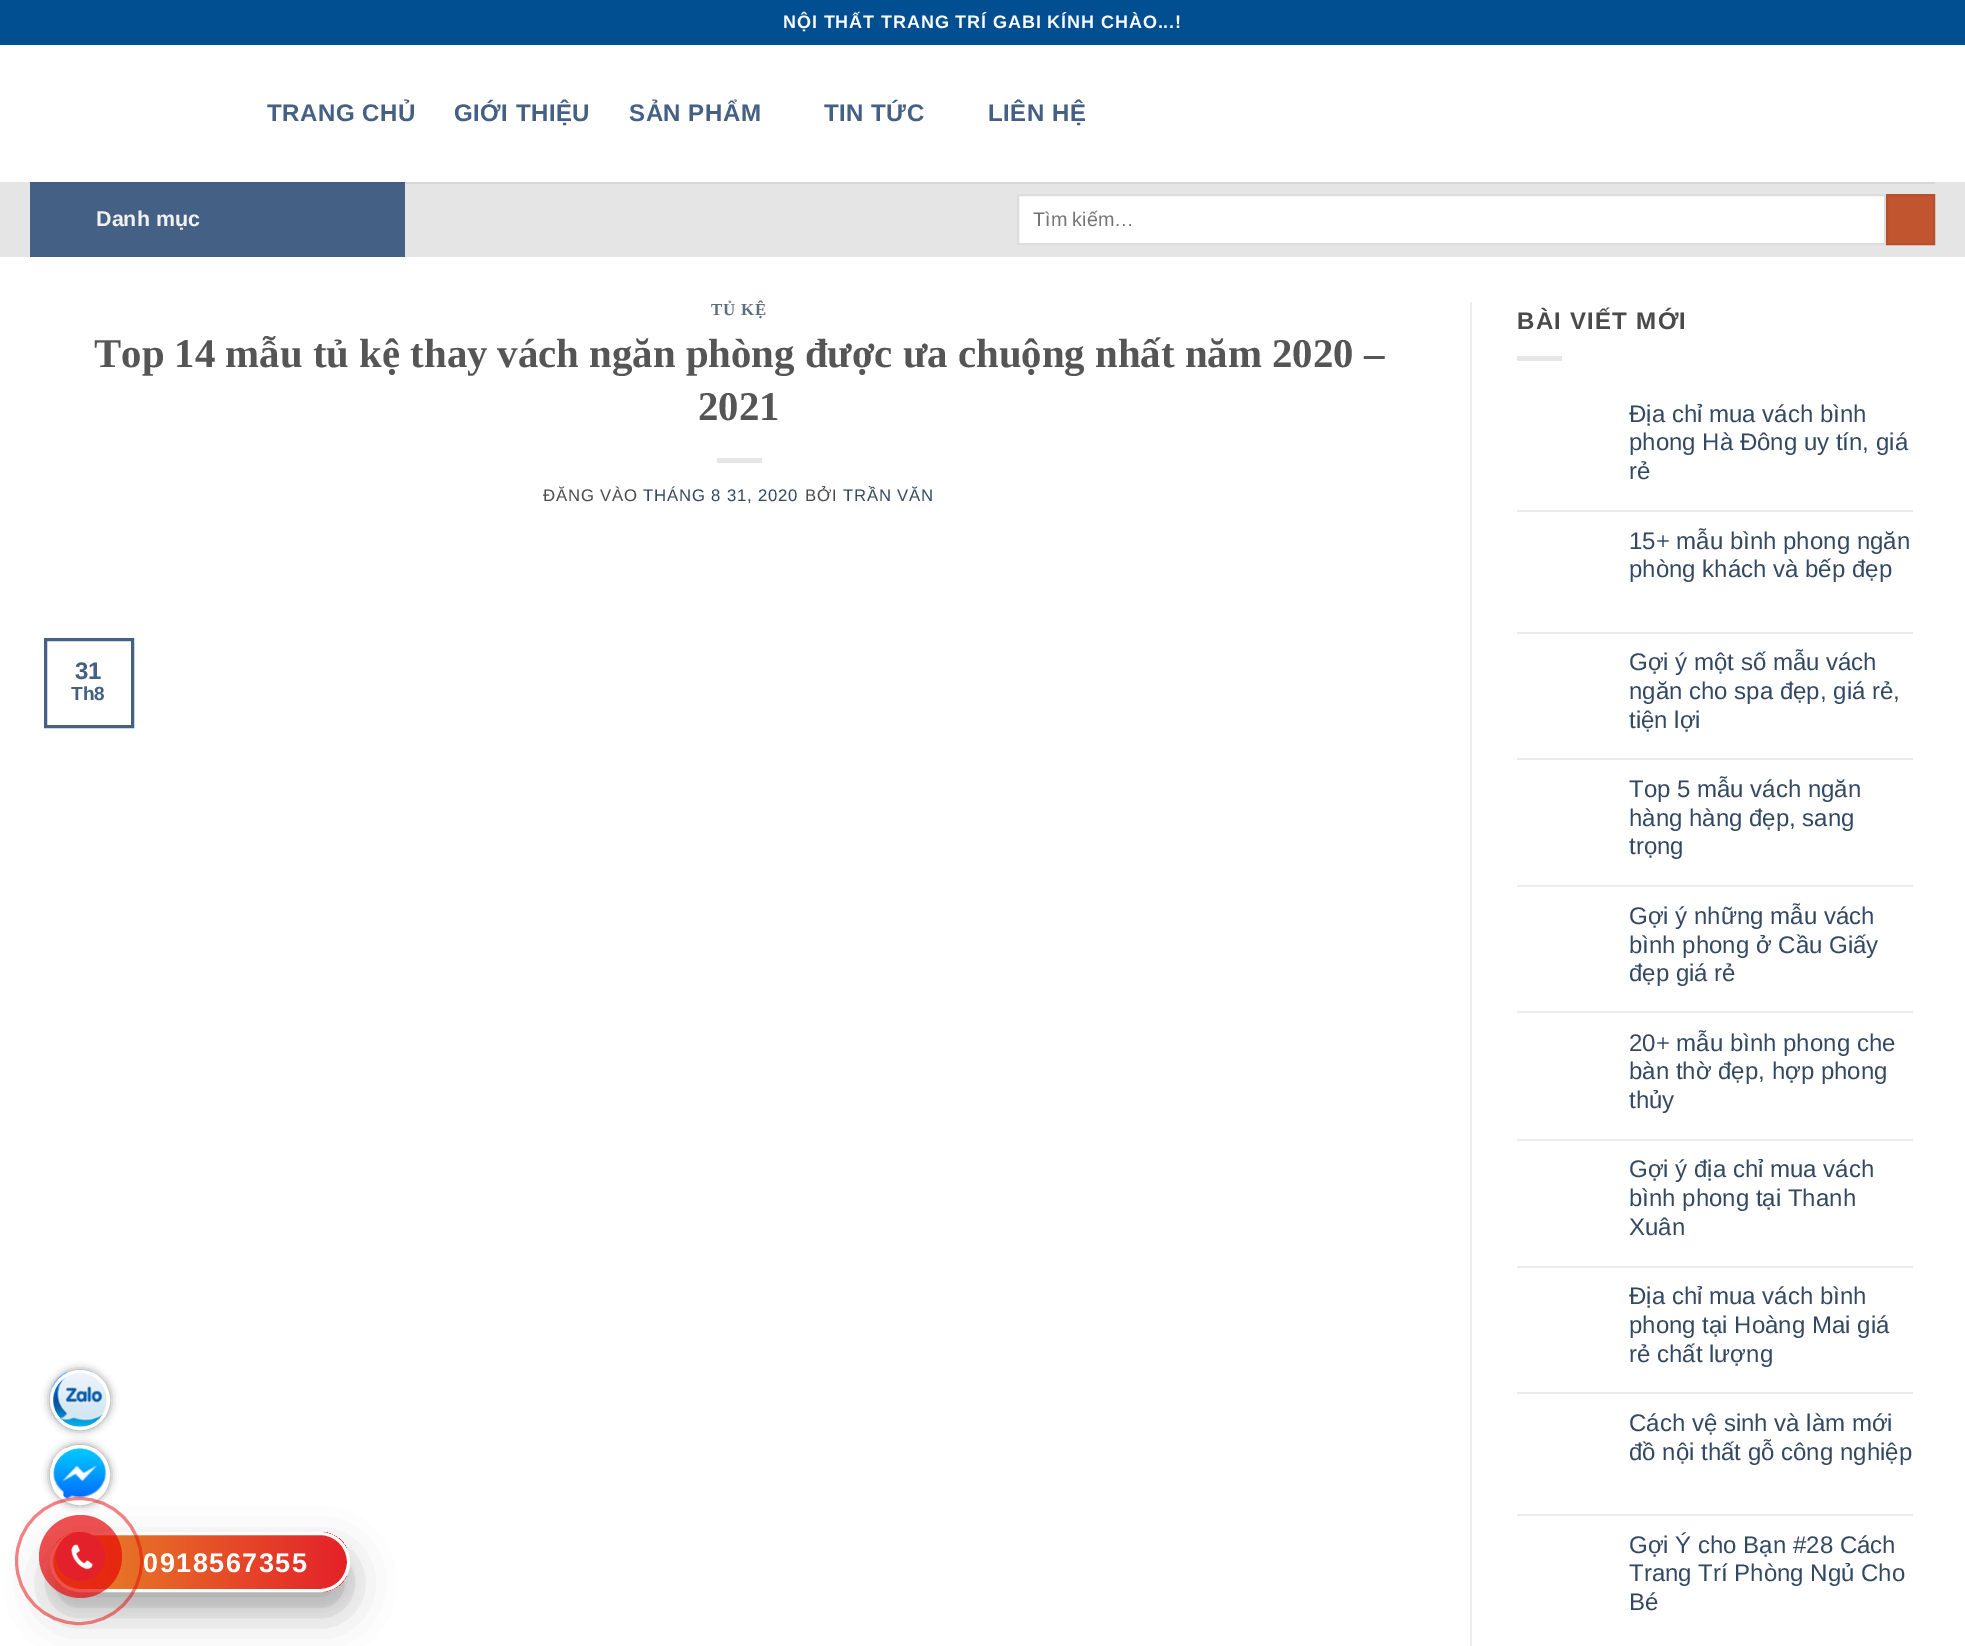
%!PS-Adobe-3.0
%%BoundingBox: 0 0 1965 1646
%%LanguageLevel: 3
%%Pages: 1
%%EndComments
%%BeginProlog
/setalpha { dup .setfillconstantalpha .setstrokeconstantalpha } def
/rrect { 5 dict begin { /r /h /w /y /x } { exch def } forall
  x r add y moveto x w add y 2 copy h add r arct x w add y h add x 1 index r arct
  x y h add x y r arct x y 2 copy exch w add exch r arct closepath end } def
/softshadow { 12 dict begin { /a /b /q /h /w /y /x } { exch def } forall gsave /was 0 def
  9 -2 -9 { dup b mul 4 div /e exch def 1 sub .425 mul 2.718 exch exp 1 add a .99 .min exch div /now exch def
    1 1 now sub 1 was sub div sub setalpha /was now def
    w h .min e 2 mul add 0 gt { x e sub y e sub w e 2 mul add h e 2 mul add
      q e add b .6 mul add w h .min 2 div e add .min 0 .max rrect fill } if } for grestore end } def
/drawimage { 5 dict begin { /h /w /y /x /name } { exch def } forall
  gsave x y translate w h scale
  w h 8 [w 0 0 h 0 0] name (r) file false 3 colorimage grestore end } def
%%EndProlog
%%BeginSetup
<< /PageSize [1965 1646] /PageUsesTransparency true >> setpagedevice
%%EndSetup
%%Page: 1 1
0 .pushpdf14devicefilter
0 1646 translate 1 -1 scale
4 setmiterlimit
1 setgray
0 0 1965 1646 rectfill
0.004 0.306 0.569 setrgbcolor
0 0 1965 45 rectfill
0.898 setgray
0 182 1965 75 rectfill
0.839 setgray
405 182 1530 2 rectfill
0.267 0.376 0.518 setrgbcolor
30 184 375 73 rectfill
0.271 0.369 0.494 setrgbcolor
30 182 375 2 rectfill
1 setgray
newpath 1018 195 moveto 1885 195 lineto 1885 244 lineto 1018 244 lineto closepath gsave fill grestore
0.867 setgray
2 setlinewidth
stroke
0.753 0.333 0.188 setrgbcolor
newpath 1887 195 moveto 1934 195 lineto 1934 244 lineto 1887 244 lineto closepath gsave fill grestore
0.714 0.318 0.18 setrgbcolor
stroke
0.902 setgray
717 458 45 5 rectfill
0.267 0.376 0.518 setrgbcolor
3 setlinewidth
45.5 639.5 87 87 rectstroke
0.925 setgray
1470 302 2 1344 rectfill
0.902 setgray
1517 356 45 5 rectfill
0.925 setgray
1517 510 396 2 rectfill
1517 632 396 2 rectfill
1517 758 396 2 rectfill
1517 885 396 2 rectfill
1517 1011 396 2 rectfill
1517 1139 396 2 rectfill
1517 1266 396 2 rectfill
1517 1392 396 2 rectfill
1517 1514 396 2 rectfill
0.533 setgray
50 1370 60 60 30 4 1 softshadow
(images/1.raw) 52 1372 55 55 drawimage
1 setgray
newpath 80 1400 28.5 0 360 arc closepath stroke
gsave
newpath 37 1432 moveto 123 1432 lineto 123 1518 lineto 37 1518 lineto closepath 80 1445 moveto 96.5 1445 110 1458.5 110 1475 curveto 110 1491.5 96.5 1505 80 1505 curveto 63.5 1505 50 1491.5 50 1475 curveto 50 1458.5 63.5 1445 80 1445 curveto closepath eoclip newpath
0.533 setgray
50 1445 60 60 30 4 1 softshadow
grestore
(images/2.raw) 53 1448 54 53 drawimage
newpath 80 1475 28.5 0 360 arc closepath stroke
0 setgray
50 1547 300 60 30 7.5 0.1 softshadow
50 1553 300 60 30 21 0.25 softshadow
gsave
50 1532 300 60 30 rrect clip newpath
gsave newpath 53 1532 moveto 347 1532 lineto 347 1592 lineto 53 1592 lineto closepath clip newpath
<< /ShadingType 2 /ColorSpace /DeviceRGB /Coords [53 1562 347 1562] /Extend [true true] /Function << /FunctionType 2 /Domain [0 1] /C0 [0.91 0.541 0.145] /C1 [0.894 0.129 0.165] /N 1 >> >> shfill grestore
grestore
1 setgray
51.5 1533.5 297 57 28.5 rrect stroke
0.5 setalpha
0.902 0.031 0.031 setrgbcolor
newpath 79 1561 62.5 0 360 arc closepath stroke
0.7 setalpha
newpath 80.5 1556.5 41.5 0 360 arc closepath fill
1 setalpha
0.894 0.129 0.165 setrgbcolor
newpath 80.5 1556.5 24.5 0 360 arc closepath fill
(images/3.raw) 71 1544 22 26 drawimage
/LiberationSans-Bold [18 0 0 -18 0 0] selectfont
1 setgray
783 28 moveto 0.9 0 (NỘI THẤT TRANG TRÍ GABI KÍNH CHÀO...!) ashow
/LiberationSans-Bold [24 0 0 -24 0 0] selectfont
0.267 0.376 0.518 setrgbcolor
267 121 moveto 0.5 0 (TRANG CHỦ) ashow
454 121 moveto 0.5 0 (GIỚI THIỆU) ashow
629 121 moveto 0.5 0 (SẢN PHẨM) ashow
824 121 moveto 0.5 0 (TIN TỨC) ashow
988 121 moveto 0.5 0 (LIÊN HỆ) ashow
/LiberationSans-Bold [21.5 0 0 -21.5 0 0] selectfont
0.945 setgray
96 226 moveto (Danh mục) show
/LiberationSans-Regular [19.75 0 0 -19.75 0 0] selectfont
0.459 setgray
1033 226 moveto (Tìm kiếm…) show
/LiberationSerif-Bold [16.75 0 0 -16.75 0 0] selectfont
0.361 0.427 0.506 setrgbcolor
711 315 moveto 0.8 0 (TỦ KỆ) ashow
/LiberationSerif-Bold [40.8 0 0 -40.8 0 0] selectfont
0.333 setgray
94 367 moveto (Top 14 mẫu tủ kệ thay vách ngăn phòng được ưa chuộng nhất năm 2020 –) show
698 420 moveto (2021) show
/LiberationSans-Regular [16.75 0 0 -16.75 0 0] selectfont
0.29 setgray
543 501 moveto 0.8 0 (ĐĂNG VÀO) ashow
0.2 0.282 0.384 setrgbcolor
643 501 moveto 0.8 0 (THÁNG 8 31, 2020) ashow
0.29 setgray
805 501 moveto 0.8 0 (BỞI) ashow
0.2 0.282 0.384 setrgbcolor
843 501 moveto 0.8 0 (TRẦN VĂN) ashow
/LiberationSans-Bold [24 0 0 -24 0 0] selectfont
0.267 0.376 0.518 setrgbcolor
75 679 moveto (31) show
/LiberationSans-Bold [19 0 0 -19 0 0] selectfont
71 700 moveto (Th8) show
/LiberationSans-Bold [24 0 0 -24 0 0] selectfont
0.29 setgray
1517 329 moveto 1.25 0 (BÀI VIẾT MỚI) ashow
/LiberationSans-Regular [24 0 0 -24 0 0] selectfont
0.2 0.282 0.384 setrgbcolor
1629 422 moveto (Địa chỉ mua vách bình) show
1629 450 moveto (phong Hà Đông uy tín, giá) show
1629 479 moveto (rẻ) show
1629 549 moveto (15+ mẫu bình phong ngăn) show
1629 577 moveto (phòng khách và bếp đẹp) show
1629 670 moveto (Gợi ý một số mẫu vách) show
1629 699 moveto (ngăn cho spa đẹp, giá rẻ,) show
1629 728 moveto (tiện lợi) show
1629 797 moveto (Top 5 mẫu vách ngăn) show
1629 826 moveto (hàng hàng đẹp, sang) show
1629 854 moveto (trọng) show
1629 924 moveto (Gợi ý những mẫu vách) show
1629 953 moveto (bình phong ở Cầu Giấy) show
1629 981 moveto (đẹp giá rẻ) show
1629 1051 moveto (20+ mẫu bình phong che) show
1629 1079 moveto (bàn thờ đẹp, hợp phong) show
1629 1108 moveto (thủy) show
1629 1177 moveto (Gợi ý địa chỉ mua vách) show
1629 1206 moveto (bình phong tại Thanh) show
1629 1235 moveto (Xuân) show
1629 1304 moveto (Địa chỉ mua vách bình) show
1629 1333 moveto (phong tại Hoàng Mai giá) show
1629 1362 moveto (rẻ chất lượng) show
1629 1431 moveto (Cách vệ sinh và làm mới) show
1629 1460 moveto (đồ nội thất gỗ công nghiệp) show
1629 1553 moveto (Gợi Ý cho Bạn #28 Cách) show
1629 1581 moveto (Trang Trí Phòng Ngủ Cho) show
1629 1610 moveto (Bé) show
/LiberationSans-Bold [27 0 0 -27 0 0] selectfont
1 setgray
143 1572 moveto 1.5 0 (0918567355) ashow
.poppdf14devicefilter showpage
%%EOF
